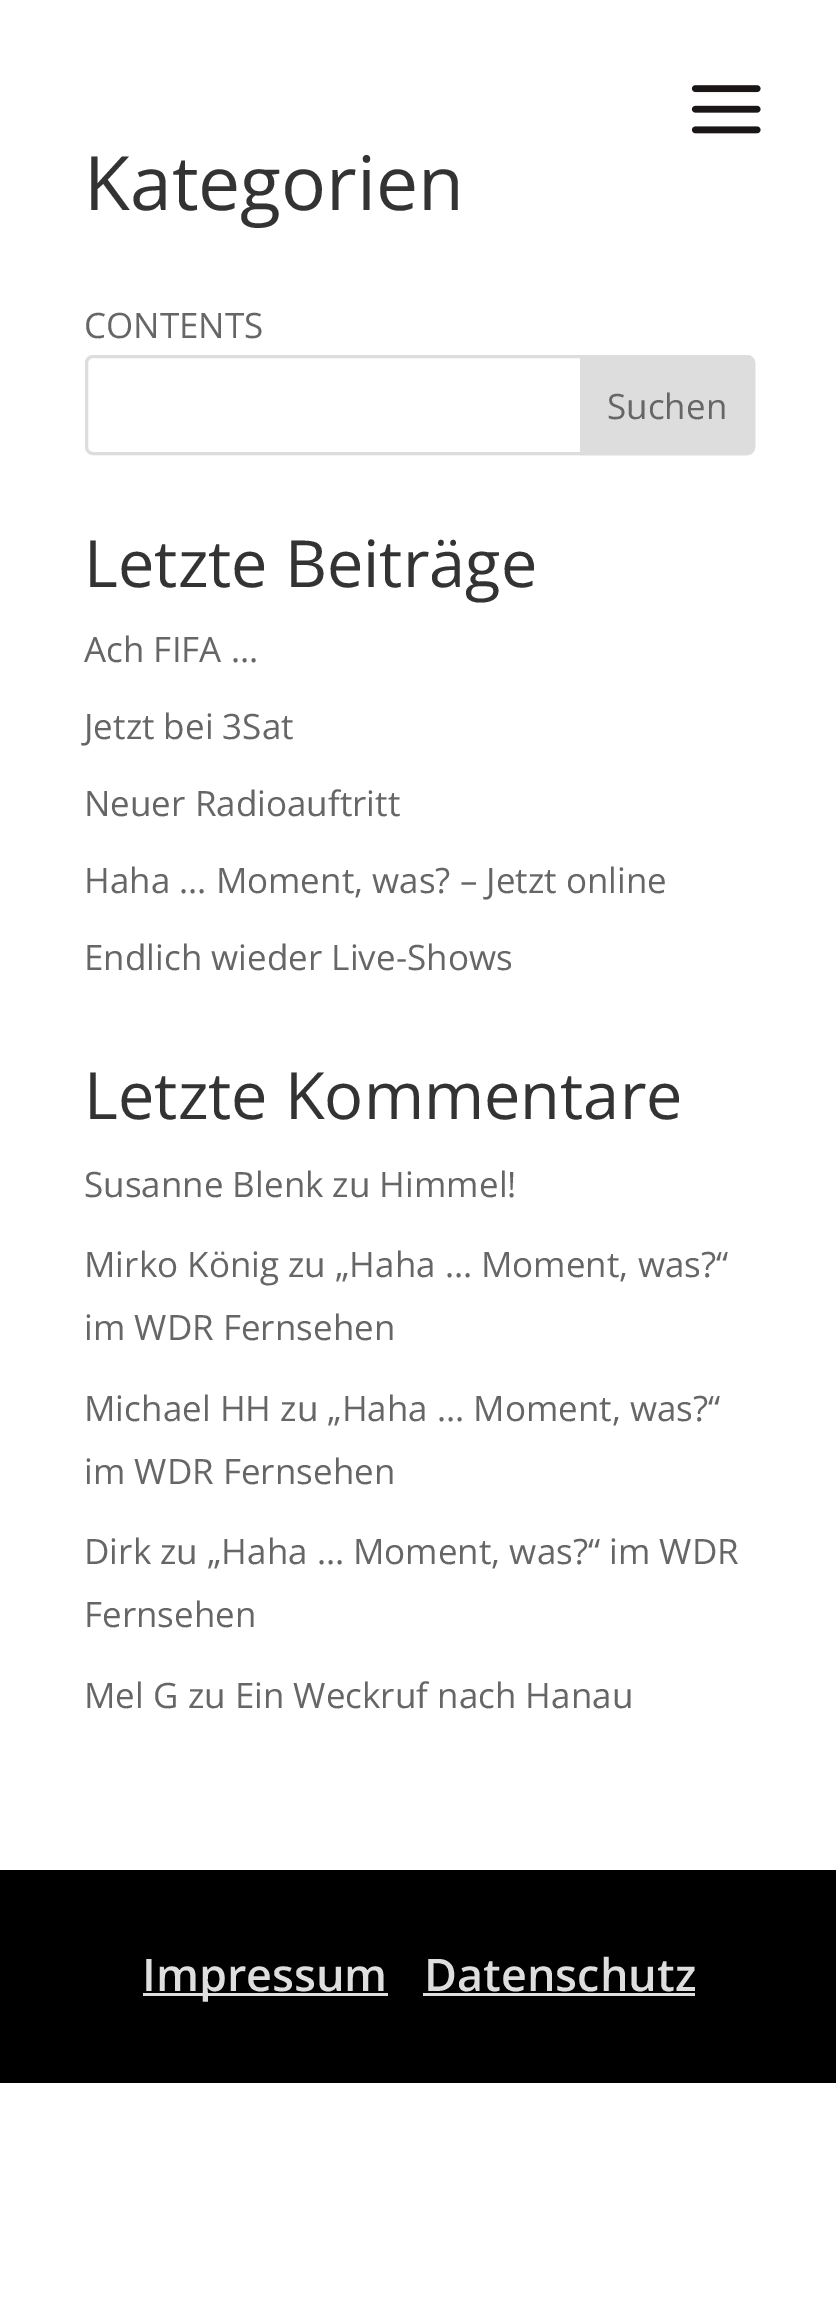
%!PS-Adobe-3.0
%%BoundingBox: 0 0 836 2310
%%LanguageLevel: 3
%%Pages: 1
%%EndComments
%%BeginProlog
/rrect { 5 dict begin { /r /h /w /y /x } { exch def } forall
  x r add y moveto x w add y 2 copy h add r arct x w add y h add x 1 index r arct
  x y h add x y r arct x y 2 copy exch w add exch r arct closepath end } def
/drawimage { 5 dict begin { /h /w /y /x /name } { exch def } forall
  gsave x y translate w h scale
  w h 8 [w 0 0 h 0 0] name (r) file false 3 colorimage grestore end } def
%%EndProlog
%%BeginSetup
<< /PageSize [836 2310] >> setpagedevice
%%EndSetup
%%Page: 1 1
0 2310 translate 1 -1 scale
4 setmiterlimit
1 setgray
0 0 836 2310 rectfill
(images/1.raw) 691 85 70 49 drawimage
0.867 setgray
3 setlinewidth
86.5 356.5 667 97 6.5 rrect stroke
newpath 581.5 356.5 moveto 747 356.5 lineto 750.5 356.5 753.5 359.5 753.5 363 curveto 753.5 447 lineto 753.5 450.5 750.5 453.5 747 453.5 curveto 581.5 453.5 lineto closepath gsave fill grestore
stroke
0 setgray
0 1870 836 213 rectfill
0.871 setgray
143 1993 245 3 rectfill
423 1993 272 3 rectfill
/OpenSans-Regular [75 0 0 -75 0 0] selectfont
0.2 setgray
84 210 moveto (Kategorien) show
/OpenSans-Regular [35 0 0 -35 0 0] selectfont
0.4 setgray
84 338 moveto (CONTENTS) show
607 419 moveto (Suchen) show
/OpenSans-Regular [65 0 0 -65 0 0] selectfont
0.2 setgray
84 587 moveto (Letzte Beiträge) show
/OpenSans-Regular [35 0 0 -35 0 0] selectfont
0.4 setgray
84 662 moveto (Ach FIFA …) show
84 739 moveto (Jetzt bei 3Sat) show
84 816 moveto (Neuer Radioauftritt) show
84 893 moveto (Haha … Moment, was? – Jetzt online) show
84 970 moveto (Endlich wieder Live-Shows) show
/OpenSans-Regular [65 0 0 -65 0 0] selectfont
0.2 setgray
84 1119 moveto (Letzte Kommentare) show
/OpenSans-Regular [35 0 0 -35 0 0] selectfont
0.4 setgray
84 1197 moveto (Susanne Blenk zu Himmel!) show
84 1277 moveto (Mirko König zu „Haha … Moment, was?“) show
84 1340 moveto (im WDR Fernsehen) show
84 1421 moveto (Michael HH zu „Haha … Moment, was?“) show
84 1484 moveto (im WDR Fernsehen) show
84 1564 moveto (Dirk zu „Haha … Moment, was?“ im WDR) show
84 1627 moveto (Fernsehen) show
84 1708 moveto (Mel G zu Ein Weckruf nach Hanau) show
/OpenSans-SemiBold [45 0 0 -45 0 0] selectfont
0.871 setgray
142 1991 moveto (Impressum) show
424 1991 moveto (Datenschutz) show
showpage
%%EOF
